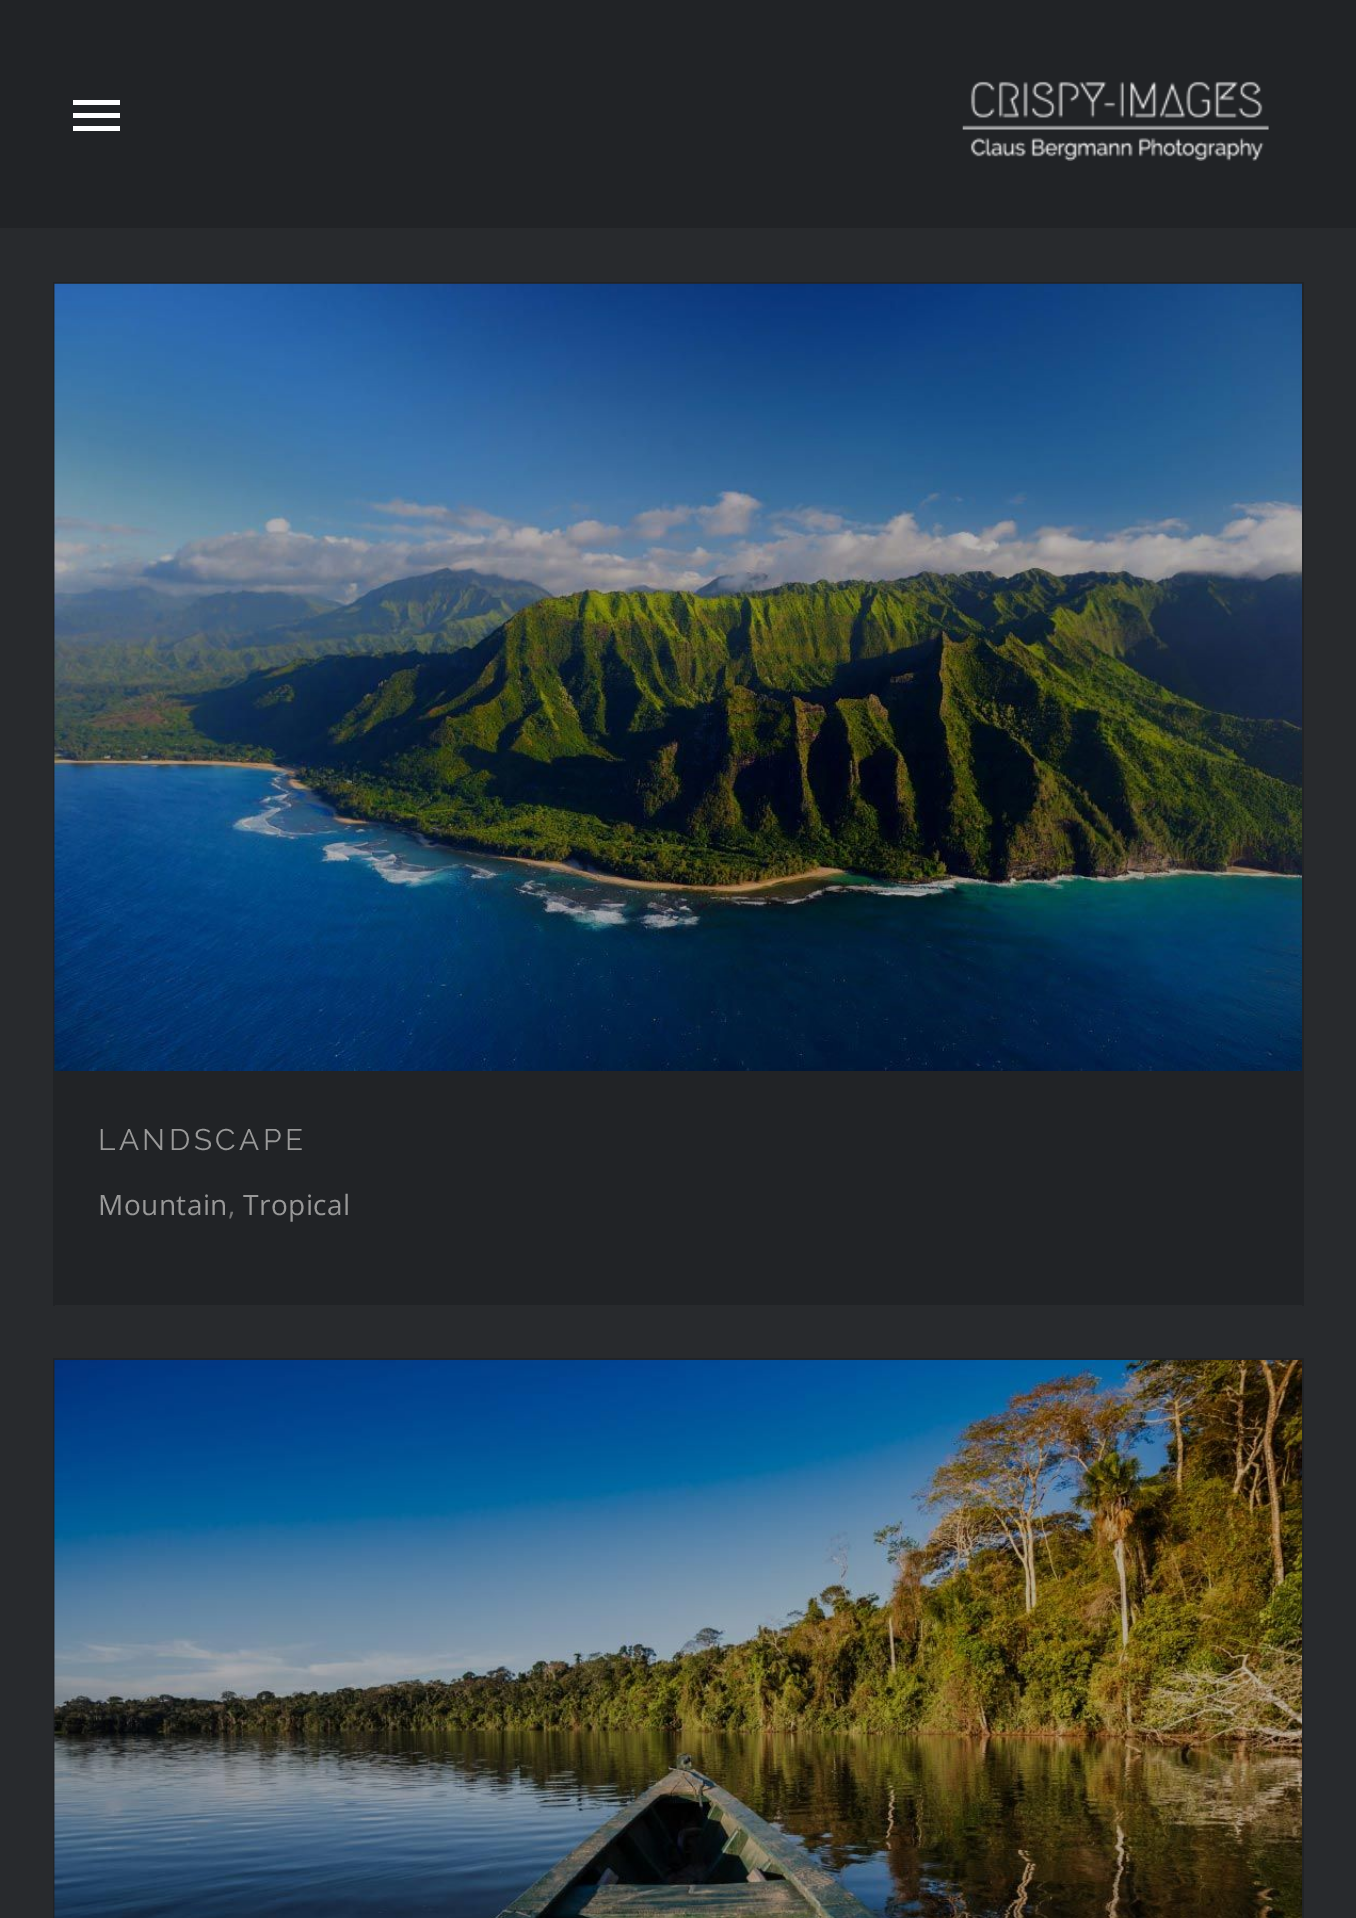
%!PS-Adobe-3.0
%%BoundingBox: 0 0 1356 1918
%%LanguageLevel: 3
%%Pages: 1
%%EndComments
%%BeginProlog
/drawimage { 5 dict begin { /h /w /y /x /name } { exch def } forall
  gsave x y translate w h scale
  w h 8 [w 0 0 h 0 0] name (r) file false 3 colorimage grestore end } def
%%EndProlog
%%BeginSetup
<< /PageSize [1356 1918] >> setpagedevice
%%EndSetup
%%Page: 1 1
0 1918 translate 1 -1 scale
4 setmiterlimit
0.157 0.165 0.176 setrgbcolor
0 0 1356 1918 rectfill
0.129 0.137 0.149 setrgbcolor
0 0 1356 228 rectfill
1 setgray
newpath 73 100 moveto 120 100 lineto 120 105 lineto 73 105 lineto closepath 73 118 moveto 73 113 lineto 120 113 lineto 120 118 lineto closepath 73 131 moveto 73 126 lineto 120 126 lineto 120 131 lineto closepath fill
(images/1.raw) 962 81 307 80 drawimage
0.129 0.137 0.149 setrgbcolor
55 1071 1247 229 rectfill
53 282 1251 2 rectfill
1302 282 2 1024 rectfill
53 1300 1251 5 rectfill
53 282 2 1024 rectfill
(images/2.raw) 54 283 1248 788 drawimage
53 1358 1251 2 rectfill
1302 1358 2 560 rectfill
53 1358 2 560 rectfill
(images/3.raw) 54 1359 1248 559 drawimage
/Raleway-Regular [29.75 0 0 -29.75 0 0] selectfont
0.6 setgray
98 1150 moveto 3.5 0 (LANDSCAPE) ashow
/OpenSans-Regular [28 0 0 -28 0 0] selectfont
98 1215 moveto 0.5 0 (Mountain) ashow
0.467 setgray
228 1215 moveto 0.5 0 (,) ashow
0.6 setgray
243 1215 moveto 0.5 0 (Tropical) ashow
showpage
%%EOF
